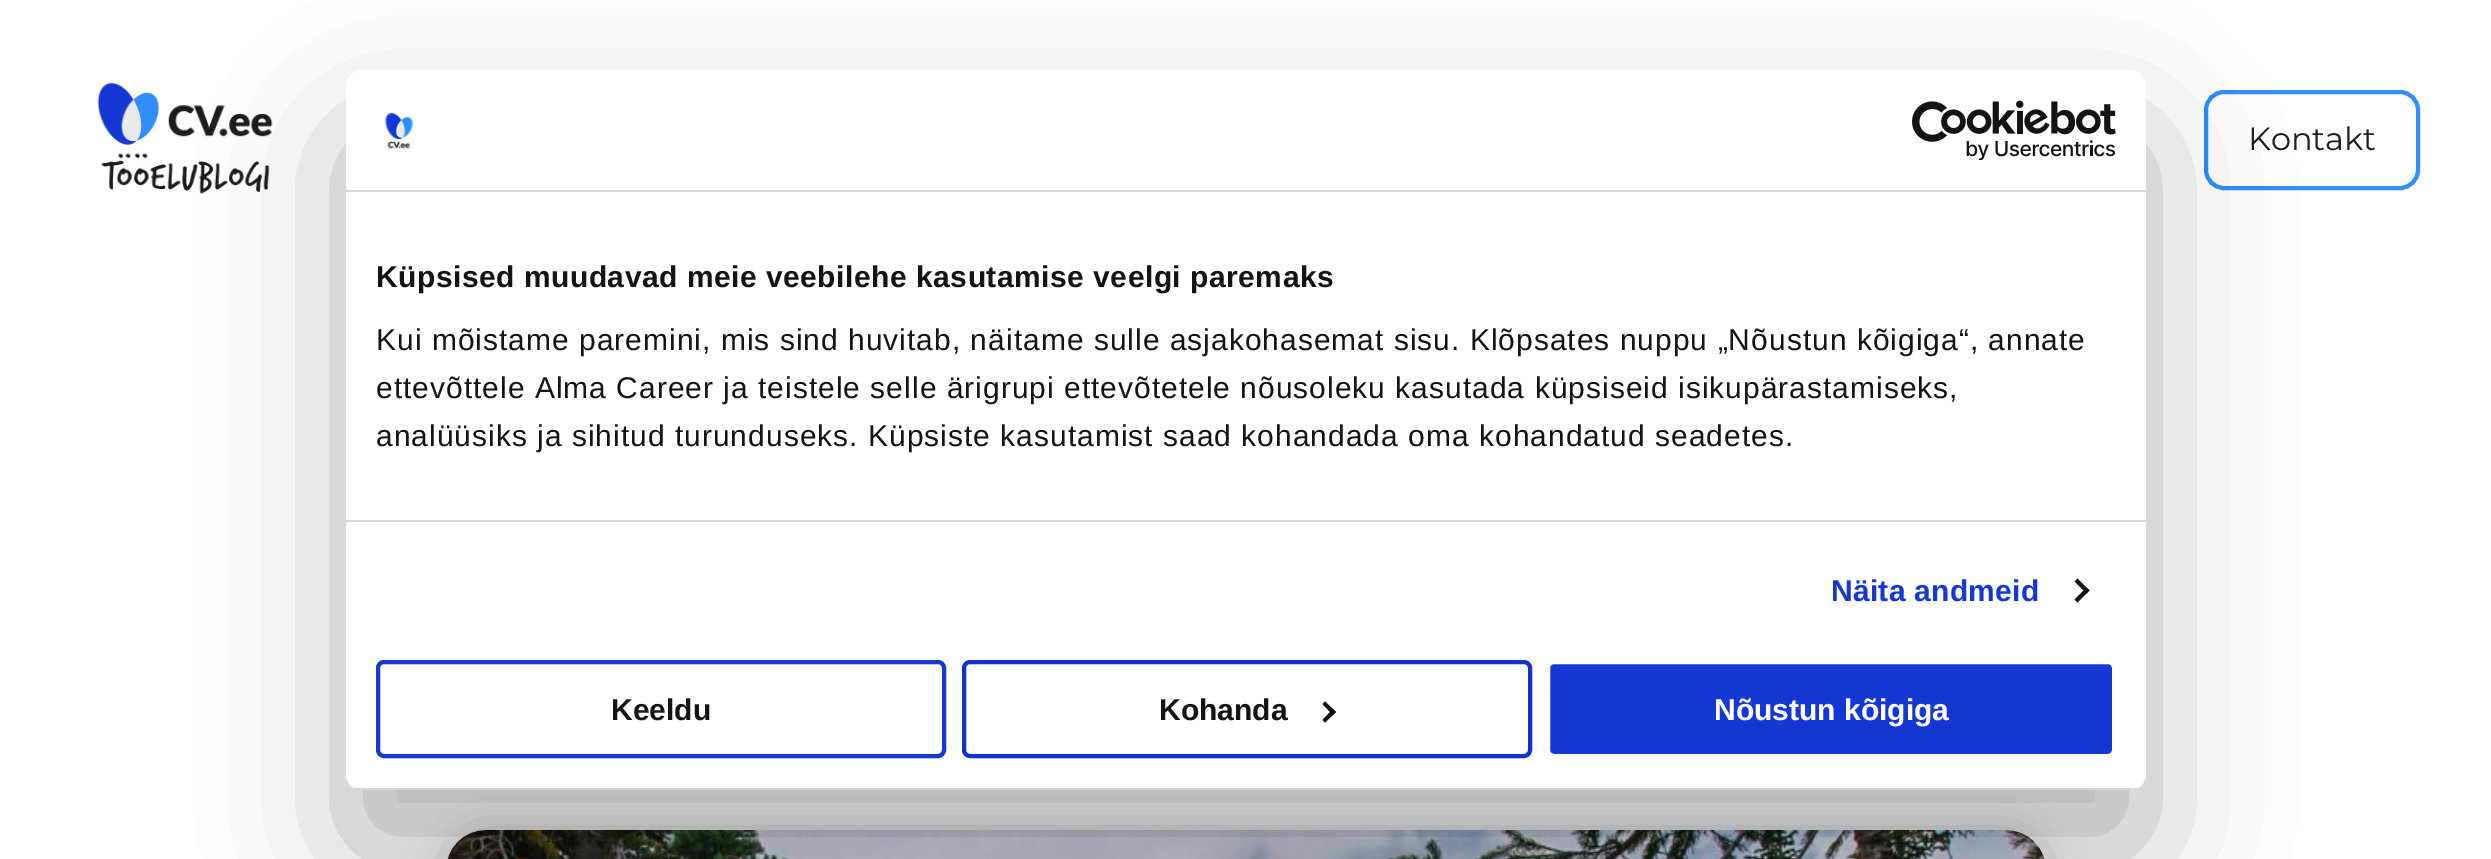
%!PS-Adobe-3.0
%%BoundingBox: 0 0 2491 859
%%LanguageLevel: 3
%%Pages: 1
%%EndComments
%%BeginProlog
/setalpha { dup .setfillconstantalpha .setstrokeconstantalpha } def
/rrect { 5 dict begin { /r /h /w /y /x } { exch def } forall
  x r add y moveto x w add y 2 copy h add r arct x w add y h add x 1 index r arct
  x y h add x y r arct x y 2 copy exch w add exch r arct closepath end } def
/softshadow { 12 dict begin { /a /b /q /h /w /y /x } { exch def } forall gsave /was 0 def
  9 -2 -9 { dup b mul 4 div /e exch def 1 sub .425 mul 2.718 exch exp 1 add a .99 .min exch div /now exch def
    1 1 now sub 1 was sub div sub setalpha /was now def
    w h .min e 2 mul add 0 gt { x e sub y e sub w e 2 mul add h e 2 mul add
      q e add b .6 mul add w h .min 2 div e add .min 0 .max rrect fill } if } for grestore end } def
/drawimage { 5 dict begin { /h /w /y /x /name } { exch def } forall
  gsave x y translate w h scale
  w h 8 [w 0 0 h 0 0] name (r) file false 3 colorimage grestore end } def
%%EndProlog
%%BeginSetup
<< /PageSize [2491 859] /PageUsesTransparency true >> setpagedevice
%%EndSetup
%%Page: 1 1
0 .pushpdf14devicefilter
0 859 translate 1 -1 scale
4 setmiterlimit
1 setgray
0 0 2491 859 rectfill
(images/1.raw) 97 82 176 112 drawimage
0.184 0.553 0.988 setrgbcolor
4 setlinewidth
2206 92 212 96 18 rrect stroke
0 setgray
446 830 1600 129 40 20 0.2 softshadow
(images/2.raw) 447 830 1598 29 drawimage
346 134 1800 720 16 68 0.3 softshadow
1 setgray
346 70 1800 720 16 rrect fill
0.839 setgray
346 190 1800 2 rectfill
(images/3.raw) 384 112 30 37 drawimage
(images/4.raw) 1912 100 204 60 drawimage
346 520 1800 2 rectfill
0.078 setgray
newpath 2077.5 578.5 moveto 2089.5 590.5 lineto 2086.5 593.5 lineto 2074.5 581.5 lineto closepath fill
newpath 2086.5 587.5 moveto 2089.5 590.5 lineto 2077.5 602.5 lineto 2074.5 599.5 lineto closepath fill
gsave
346 70 1800 720 16 rrect clip newpath
0.839 setgray
346 788 1800 2 rectfill
grestore
0.082 0.22 0.831 setrgbcolor
378 662 566 94 6 rrect stroke
0.063 0.196 0.812 setrgbcolor
964 662 566 94 6 rrect stroke
0.078 setgray
newpath 1325 701.5 moveto 1336 712 lineto 1333 715 lineto 1322.5 704 lineto closepath fill
newpath 1333 709 moveto 1336 712 lineto 1325 722.5 lineto 1322.5 720 lineto closepath fill
0.082 0.22 0.831 setrgbcolor
1548 662 566 94 6 rrect gsave fill grestore
1 setgray
stroke
/Montserrat-Regular [32 0 0 -32 0 0] selectfont
0.114 0.114 0.122 setrgbcolor
2248 150 moveto (Kontakt) show
/LiberationSans-Bold [30 0 0 -30 0 0] selectfont
0.078 setgray
376 287 moveto 0.5 0 (Küpsised muudavad meie veebilehe kasutamise veelgi paremaks) ashow
/LiberationSans-Regular [30 0 0 -30 0 0] selectfont
376 350 moveto 1 0 (Kui mõistame paremini, mis sind huvitab, näitame sulle asjakohasemat sisu. Klõpsates nuppu „Nõustun kõigiga“, annate) ashow
376 398 moveto 1 0 (ettevõttele Alma Career ja teistele selle ärigrupi ettevõtetele nõusoleku kasutada küpsiseid isikupärastamiseks,) ashow
376 446 moveto 1 0 (analüüsiks ja sihitud turunduseks. Küpsiste kasutamist saad kohandada oma kohandatud seadetes.) ashow
/LiberationSans-Bold [30 0 0 -30 0 0] selectfont
0.082 0.22 0.831 setrgbcolor
1831 601 moveto 0.25 0 (Näita andmeid) ashow
0.078 setgray
611 720 moveto (Keeldu) show
1159 720 moveto (Kohanda) show
1 setgray
1714 720 moveto (Nõustun kõigiga) show
.poppdf14devicefilter showpage
%%EOF
